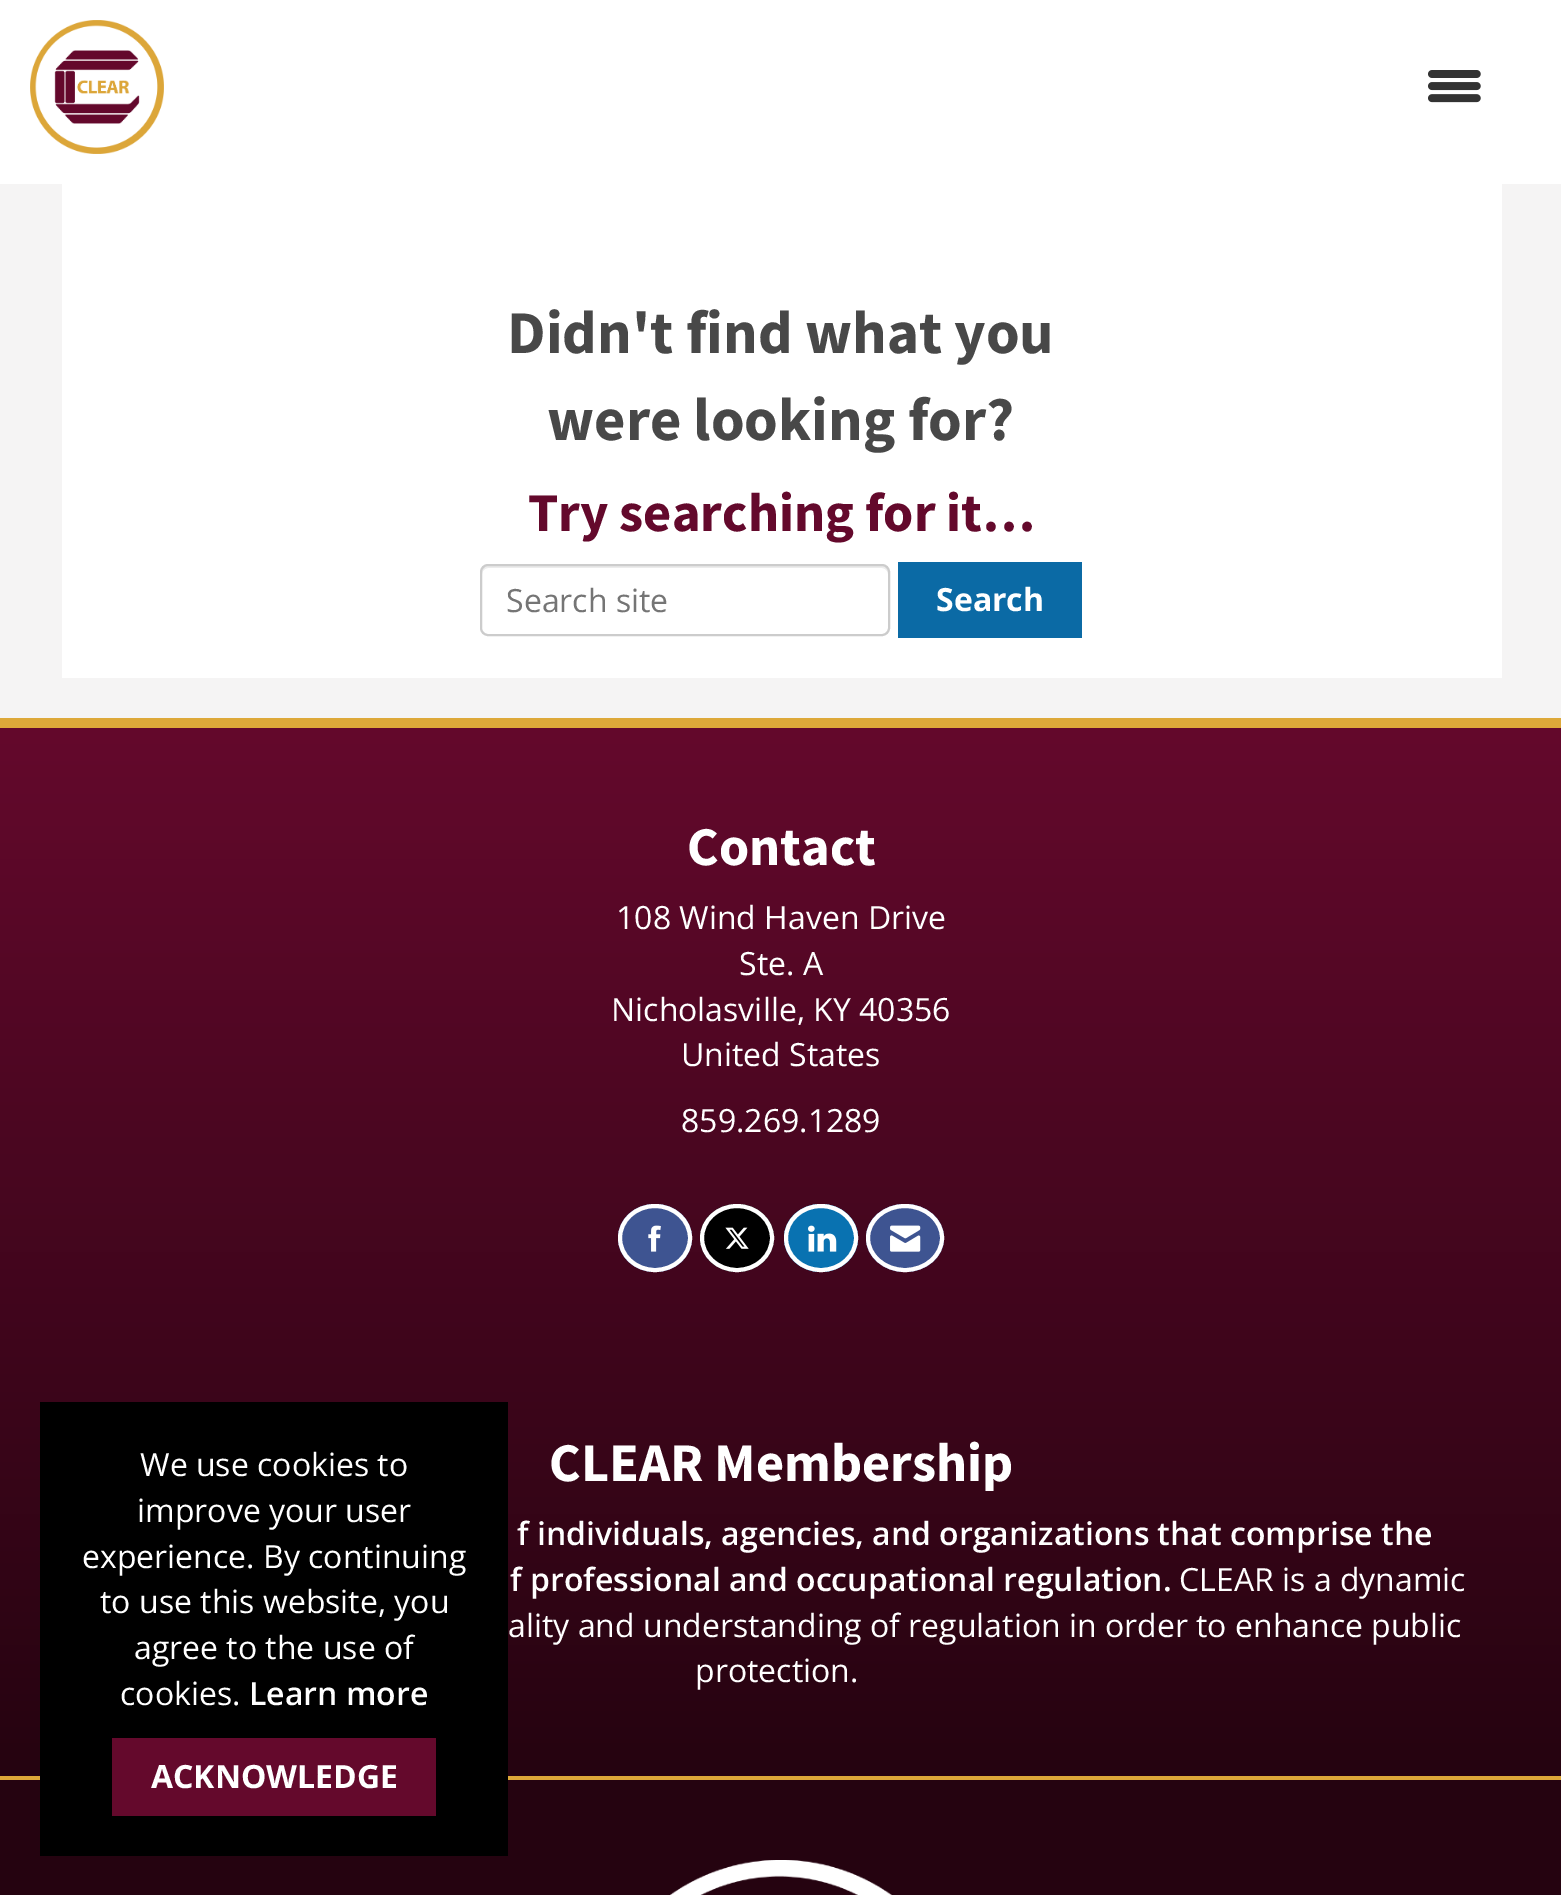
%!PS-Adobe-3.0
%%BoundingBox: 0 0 1561 1895
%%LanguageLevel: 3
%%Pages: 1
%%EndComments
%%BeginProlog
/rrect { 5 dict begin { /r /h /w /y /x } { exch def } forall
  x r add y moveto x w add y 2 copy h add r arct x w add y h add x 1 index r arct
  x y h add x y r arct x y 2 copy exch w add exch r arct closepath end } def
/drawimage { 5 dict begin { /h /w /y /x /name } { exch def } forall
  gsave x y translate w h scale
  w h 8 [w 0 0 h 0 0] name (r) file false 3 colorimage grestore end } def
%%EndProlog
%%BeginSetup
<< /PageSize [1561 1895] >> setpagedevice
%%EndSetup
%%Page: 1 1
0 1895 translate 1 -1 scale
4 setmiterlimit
0.961 0.957 0.957 setrgbcolor
0 0 1561 1895 rectfill
1 setgray
0 0 1561 184 rectfill
(images/1.raw) 30 20 134 134 drawimage
(images/2.raw) 1428 70 53 33 drawimage
62 184 1440 494 rectfill
0.925 setgray
newpath 488 568 moveto 882 568 lineto 885 568 888 571 888 574 curveto 888 570 887 566 882 566 curveto 488 566 lineto 483 566 482 570 482 574 curveto 482 571 485 568 488 568 curveto closepath fill
0.8 setgray
2 setlinewidth
481 565 408 70 7 rrect stroke
0.043 0.416 0.647 setrgbcolor
898 562 184 76 rectfill
gsave newpath 0 728 moveto 1561 728 lineto 1561 1776 lineto 0 1776 lineto closepath clip newpath
<< /ShadingType 2 /ColorSpace /DeviceRGB /Coords [781 728 781 1776] /Extend [true true] /Function << /FunctionType 2 /Domain [0 1] /C0 [0.392 0.035 0.173] /C1 [0.145 0.012 0.063] /N 1 >> >> shfill grestore
0.145 0.012 0.063 setrgbcolor
0 1780 1561 115 rectfill
0.867 0.659 0.224 setrgbcolor
0 1776 1561 4 rectfill
0 setgray
40 1402 468 454 rectfill
0.392 0.035 0.173 setrgbcolor
112 1738 324 78 rectfill
0.867 0.659 0.224 setrgbcolor
0 718 1561 10 rectfill
0.243 0.329 0.569 setrgbcolor
newpath 655 1204 moveto 675.5 1204 692 1219 692 1238 curveto 692 1257 675.5 1272 655 1272 curveto 634.5 1272 618 1257 618 1238 curveto 618 1219 634.5 1204 655 1204 curveto closepath fill
1 setgray
4 setlinewidth
newpath 655 1206 moveto 674.5 1206 690 1220.5 690 1238 curveto 690 1255.5 674.5 1270 655 1270 curveto 635.5 1270 620 1255.5 620 1238 curveto 620 1220.5 635.5 1206 655 1206 curveto closepath stroke
(images/3.raw) 648 1225 13 27 drawimage
0 setgray
newpath 737 1204 moveto 757.5 1204 774 1219 774 1238 curveto 774 1257 757.5 1272 737 1272 curveto 716.5 1272 700 1257 700 1238 curveto 700 1219 716.5 1204 737 1204 curveto closepath fill
1 setgray
newpath 737 1206 moveto 756.5 1206 772 1220.5 772 1238 curveto 772 1255.5 756.5 1270 737 1270 curveto 717.5 1270 702 1255.5 702 1238 curveto 702 1220.5 717.5 1206 737 1206 curveto closepath stroke
(images/4.raw) 725 1227 24 22 drawimage
0.035 0.447 0.694 setrgbcolor
newpath 821 1204 moveto 841.5 1204 858 1219 858 1238 curveto 858 1257 841.5 1272 821 1272 curveto 800.5 1272 784 1257 784 1238 curveto 784 1219 800.5 1204 821 1204 curveto closepath fill
1 setgray
newpath 821 1206 moveto 840.5 1206 856 1220.5 856 1238 curveto 856 1255.5 840.5 1270 821 1270 curveto 801.5 1270 786 1255.5 786 1238 curveto 786 1220.5 801.5 1206 821 1206 curveto closepath stroke
(images/5.raw) 808 1225 29 27 drawimage
0.243 0.329 0.569 setrgbcolor
newpath 905 1204 moveto 926.5 1204 944 1219 944 1238 curveto 944 1257 926.5 1272 905 1272 curveto 883.5 1272 866 1257 866 1238 curveto 866 1219 883.5 1204 905 1204 curveto closepath fill
1 setgray
newpath 905 1206 moveto 925.5 1206 942 1220.5 942 1238 curveto 942 1255.5 925.5 1270 905 1270 curveto 884.5 1270 868 1255.5 868 1238 curveto 868 1220.5 884.5 1206 905 1206 curveto closepath stroke
(images/6.raw) 890 1225 31 27 drawimage
(images/7.raw) 670 1860 222 35 drawimage
/SourceSansPro-Bold [60.75 0 0 -60.75 0 0] selectfont
0.282 setgray
507 353 moveto (Didn't find what you) show
547 440 moveto (were looking for?) show
/SourceSansPro-Bold [54.5 0 0 -54.5 0 0] selectfont
0.392 0.035 0.173 setrgbcolor
528 531 moveto (Try searching for it…) show
/OpenSans-Regular [32 0 0 -32 0 0] selectfont
0.459 setgray
506 612 moveto (Search site) show
/OpenSans-Bold [32 0 0 -32 0 0] selectfont
1 setgray
936 611 moveto (Search) show
/OpenSans-Regular [32 0 0 -32 0 0] selectfont
140 1476 moveto (We use cookies to) show
137 1522 moveto (improve your user) show
82 1568 moveto (experience. By continuing) show
100 1613 moveto (to use this website, you) show
134 1659 moveto (agree to the use of) show
120 1705 moveto (cookies.) show
/OpenSans-SemiBold [32 0 0 -32 0 0] selectfont
249 1705 moveto (Learn more) show
/OpenSans-Bold [32 0 0 -32 0 0] selectfont
151 1788 moveto (ACKNOWLEDGE) show
/SourceSansPro-Bold [54.5 0 0 -54.5 0 0] selectfont
687 865 moveto (Contact) show
/OpenSans-Regular [32 0 0 -32 0 0] selectfont
616 929 moveto (108 Wind Haven Drive) show
739 975 moveto (Ste. A) show
611 1021 moveto (Nicholasville, KY 40356) show
681 1066 moveto (United States) show
681 1132 moveto (859.269.1289) show
/SourceSansPro-Bold [54.5 0 0 -54.5 0 0] selectfont
549 1481 moveto (CLEAR Membership) show
/OpenSans-SemiBold [32 0 0 -32 0 0] selectfont
517 1545 moveto (f individuals, agencies, and organizations that comprise the) show
510 1591 moveto (f professional and occupational regulation.) show
/OpenSans-Regular [32 0 0 -32 0 0] selectfont
1179 1591 moveto (CLEAR is a dynamic) show
508 1637 moveto (ality and understanding of regulation in order to enhance public) show
695 1682 moveto (protection.) show
showpage
%%EOF
